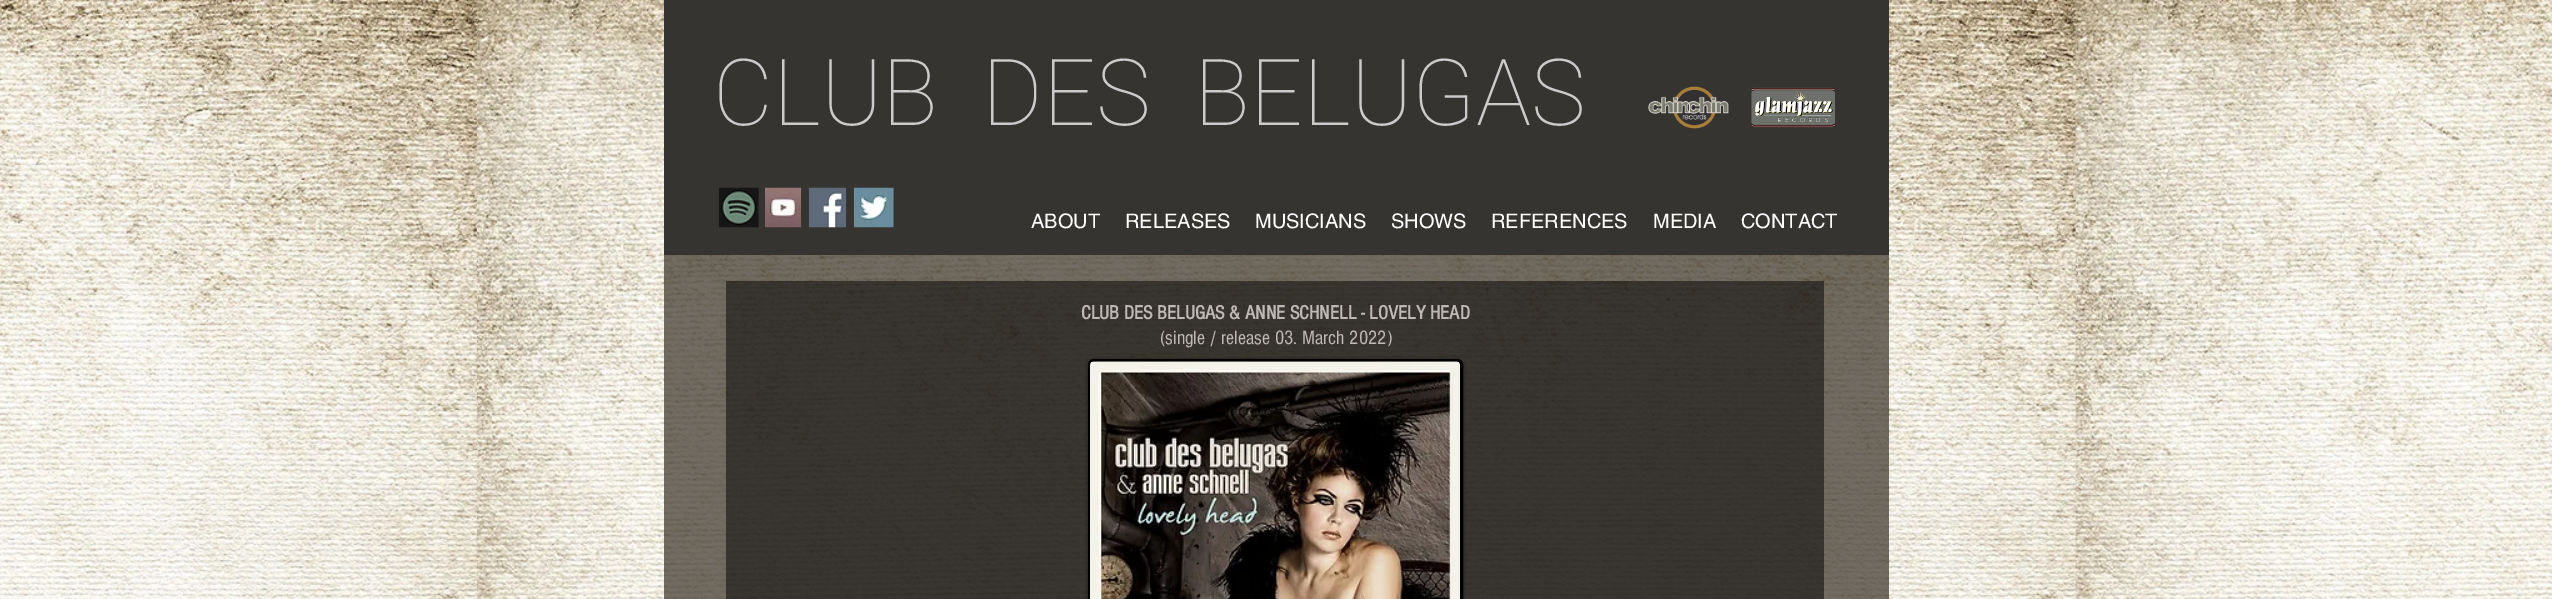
%!PS-Adobe-3.0
%%BoundingBox: 0 0 2552 599
%%LanguageLevel: 3
%%Pages: 1
%%EndComments
%%BeginProlog
/setalpha { dup .setfillconstantalpha .setstrokeconstantalpha } def
/rrect { 5 dict begin { /r /h /w /y /x } { exch def } forall
  x r add y moveto x w add y 2 copy h add r arct x w add y h add x 1 index r arct
  x y h add x y r arct x y 2 copy exch w add exch r arct closepath end } def
/softshadow { 12 dict begin { /a /b /q /h /w /y /x } { exch def } forall gsave /was 0 def
  9 -2 -9 { dup b mul 4 div /e exch def 1 sub .425 mul 2.718 exch exp 1 add a .99 .min exch div /now exch def
    1 1 now sub 1 was sub div sub setalpha /was now def
    w h .min e 2 mul add 0 gt { x e sub y e sub w e 2 mul add h e 2 mul add
      q e add b .6 mul add w h .min 2 div e add .min 0 .max rrect fill } if } for grestore end } def
/drawimage { 5 dict begin { /h /w /y /x /name } { exch def } forall
  gsave x y translate w h scale
  w h 8 [w 0 0 h 0 0] name (r) file false 3 colorimage grestore end } def
%%EndProlog
%%BeginSetup
<< /PageSize [2552 599] /PageUsesTransparency true >> setpagedevice
%%EndSetup
%%Page: 1 1
0 .pushpdf14devicefilter
0 599 translate 1 -1 scale
4 setmiterlimit
1 setgray
0 0 2552 599 rectfill
(images/1.raw) 0 0 2552 599 drawimage
0.212 0.204 0.188 setrgbcolor
664 0 1225 255 rectfill
(images/2.raw) 1648 86 81 43 drawimage
(images/3.raw) 1751 87 84 41 drawimage
(images/4.raw) 719 187 40 41 drawimage
(images/5.raw) 765 187 37 41 drawimage
(images/6.raw) 808 187 39 41 drawimage
(images/7.raw) 853 187 41 41 drawimage
0.72 setalpha
0.239 0.208 0.165 setrgbcolor
664 255 1225 344 rectfill
0.5 setalpha
0 setgray
726 281 1098 318 rectfill
1 setalpha
1088 360 375 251 6 2 0.5 softshadow
3 setlinewidth
1089.5 360.5 372 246 4.5 rrect stroke
(images/8.raw) 1090 361 370 238 drawimage
/Roboto-Thin [92.5 0 0 -92.5 0 0] selectfont
0.8 0.796 0.796 setrgbcolor
713 125 moveto (CLUB  DES  BELUGAS) show
/helvetica-Regular [20 0 0 -20 0 0] selectfont
1 setgray
1031 228 moveto (ABOUT) show
1125 228 moveto (RELEASES) show
1255 228 moveto (MUSICIANS) show
1391 228 moveto (SHOWS) show
1491 228 moveto (REFERENCES) show
1653 228 moveto (MEDIA) show
1741 228 moveto (CONTACT) show
/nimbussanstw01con-Bold [20 0 0 -20 0 0] selectfont
0.749 0.725 0.714 setrgbcolor
1081 319 moveto (CLUB DES BELUGAS & ANNE SCHNELL - LOVELY HEAD) show
/nimbussanstw01con-Regular [20 0 0 -20 0 0] selectfont
1160 344 moveto (\(single / release 03. March 2022\)) show
.poppdf14devicefilter showpage
%%EOF
